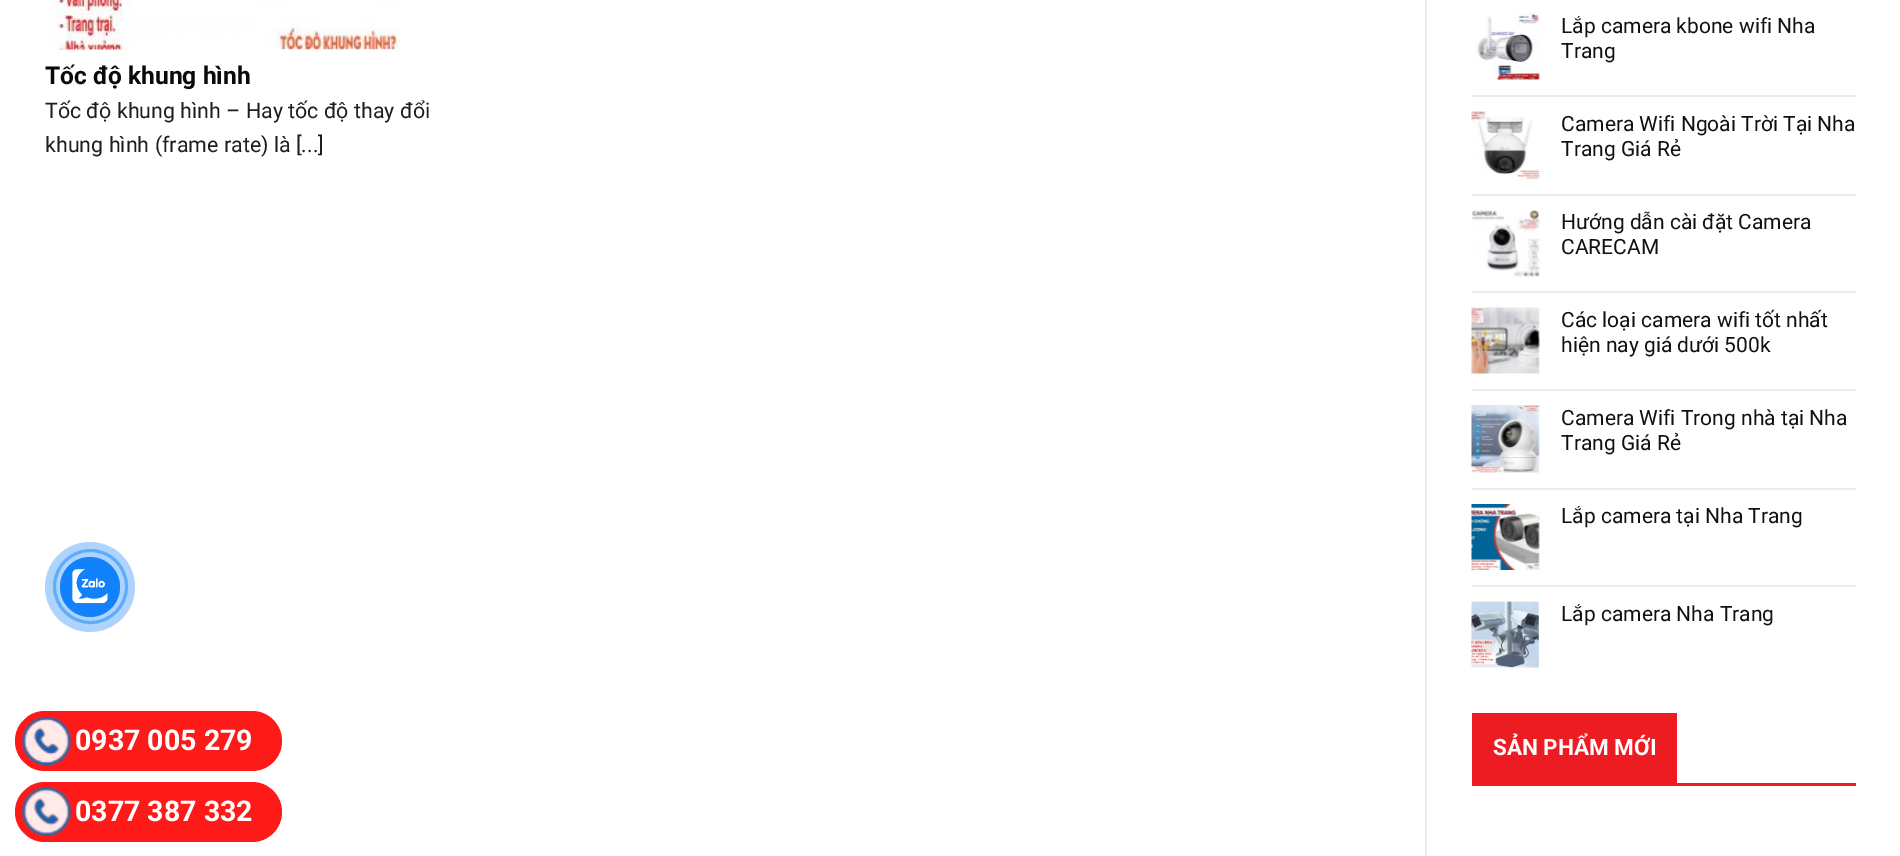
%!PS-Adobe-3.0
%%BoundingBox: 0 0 1900 856
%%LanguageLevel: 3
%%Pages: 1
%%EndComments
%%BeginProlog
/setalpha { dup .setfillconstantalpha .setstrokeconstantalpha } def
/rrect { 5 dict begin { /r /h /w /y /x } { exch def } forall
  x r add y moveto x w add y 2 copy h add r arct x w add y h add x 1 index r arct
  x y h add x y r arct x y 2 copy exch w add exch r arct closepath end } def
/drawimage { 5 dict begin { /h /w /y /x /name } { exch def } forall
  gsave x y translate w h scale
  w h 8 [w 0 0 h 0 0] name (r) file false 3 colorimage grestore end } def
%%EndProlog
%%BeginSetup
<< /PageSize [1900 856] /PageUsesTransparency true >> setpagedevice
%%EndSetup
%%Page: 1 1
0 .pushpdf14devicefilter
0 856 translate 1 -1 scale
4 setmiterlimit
1 setgray
0 0 1900 856 rectfill
(images/1.raw) 49 0 351 50 drawimage
0.925 setgray
1425 0 2 856 rectfill
(images/2.raw) 1476 13 64 67 drawimage
1472 95 384 2 rectfill
(images/3.raw) 1471 111 69 68 drawimage
1472 194 384 2 rectfill
(images/4.raw) 1472 210 68 67 drawimage
1472 291 384 2 rectfill
(images/5.raw) 1471 307 69 67 drawimage
1472 389 384 2 rectfill
(images/6.raw) 1471 405 69 68 drawimage
1472 488 384 2 rectfill
(images/7.raw) 1471 504 69 66 drawimage
1472 585 384 2 rectfill
(images/8.raw) 1471 601 68 67 drawimage
0.929 0.11 0.133 setrgbcolor
1472 783 384 3 rectfill
1472 713 205 70 rectfill
0.533 0.757 0.996 setrgbcolor
3 setlinewidth
newpath 90.5 586.5 36 0 360 arc closepath stroke
0.34 setalpha
0.067 0.51 0.988 setrgbcolor
newpath 90 587 45 0 360 arc closepath fill
1 setalpha
newpath 90 587 30 0 360 arc closepath fill
(images/9.raw) 72 569 36 35 drawimage
1 0.102 0.102 setrgbcolor
15 711 267 60 30 rrect fill
(images/10.raw) 22 717 49 48 drawimage
15 782 267 60 30 rrect fill
(images/11.raw) 22 787 49 49 drawimage
/Roboto-Bold [24.5 0 0 -24.5 0 0] selectfont
0.039 setgray
45 84 moveto (Tốc độ khung hình) show
/Roboto-Regular [21.4 0 0 -21.4 0 0] selectfont
0.118 setgray
45 118 moveto (Tốc độ khung hình – Hay tốc độ thay đổi) show
45 152 moveto (khung hình \(frame rate\) là [...]) show
/Roboto-Regular [21 0 0 -21 0 0] selectfont
0.067 setgray
1561 33 moveto (Lắp camera kbone wifi Nha) show
1561 58 moveto (Trang) show
1561 131 moveto (Camera Wifi Ngoài Trời Tại Nha) show
1561 156 moveto (Trang Giá Rẻ) show
1561 229 moveto (Hướng dẫn cài đặt Camera) show
1561 254 moveto (CARECAM) show
1561 327 moveto (Các loại camera wifi tốt nhất) show
1561 352 moveto (hiện nay giá dưới 500k) show
1561 425 moveto (Camera Wifi Trong nhà tại Nha) show
1561 450 moveto (Trang Giá Rẻ) show
1561 523 moveto (Lắp camera tại Nha Trang) show
1561 621 moveto (Lắp camera Nha Trang) show
/Roboto-Bold [22.5 0 0 -22.5 0 0] selectfont
1 setgray
1493 755 moveto (SẢN PHẨM MỚI) show
/Roboto-Bold [28.5 0 0 -28.5 0 0] selectfont
75 750 moveto (0937 005 279) show
75 821 moveto (0377 387 332) show
.poppdf14devicefilter showpage
%%EOF
